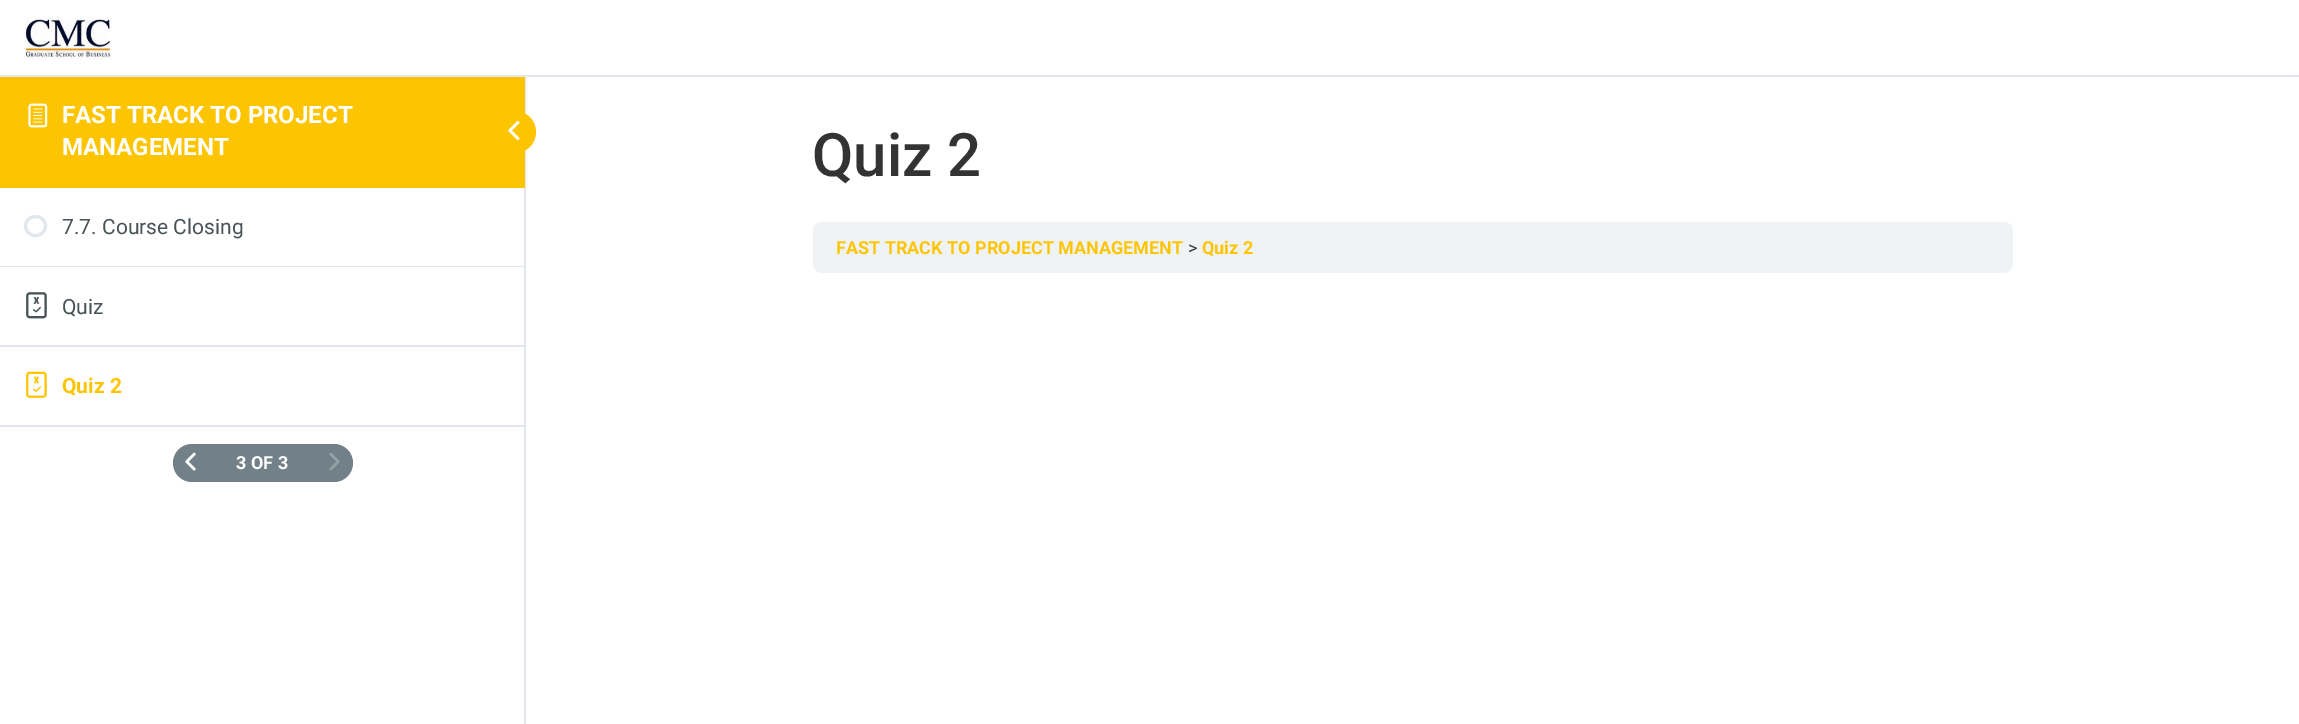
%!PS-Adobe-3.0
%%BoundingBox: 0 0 2299 724
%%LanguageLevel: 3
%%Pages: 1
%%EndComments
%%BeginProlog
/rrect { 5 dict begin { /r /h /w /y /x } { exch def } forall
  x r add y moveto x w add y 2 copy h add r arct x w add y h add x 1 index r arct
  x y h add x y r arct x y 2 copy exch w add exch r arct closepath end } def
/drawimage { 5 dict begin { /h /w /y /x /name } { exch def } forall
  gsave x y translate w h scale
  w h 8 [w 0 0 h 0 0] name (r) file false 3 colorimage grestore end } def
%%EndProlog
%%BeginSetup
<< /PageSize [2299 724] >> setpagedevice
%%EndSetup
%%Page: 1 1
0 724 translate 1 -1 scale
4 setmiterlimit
1 setgray
0 0 2299 724 rectfill
0.886 0.906 0.929 setrgbcolor
524 77 2 647 rectfill
0.992 0.773 0 setrgbcolor
0 77 525 111 rectfill
(images/1.raw) 28 103 20 25 drawimage
492 111 44 42 21 rrect fill
(images/2.raw) 508 121 12 19 drawimage
0.886 0.906 0.929 setrgbcolor
0 266 524 1 rectfill
3 setlinewidth
25.5 216.5 20 19 9.5 rrect stroke
0 345 524 2 rectfill
(images/3.raw) 26 292 21 27 drawimage
0 425 524 2 rectfill
(images/4.raw) 26 371 21 27 drawimage
0.447 0.506 0.533 setrgbcolor
173 444 180 38 19 rrect fill
(images/5.raw) 185 452 11 19 drawimage
(images/6.raw) 329 452 11 19 drawimage
0.886 0.906 0.929 setrgbcolor
0 75 2299 2 rectfill
(images/7.raw) 24 17 89 43 drawimage
0.941 0.953 0.965 setrgbcolor
813 222 1200 51 9 rrect fill
/Roboto-Bold [24 0 0 -24 0 0] selectfont
1 setgray
62 123 moveto (FAST TRACK TO PROJECT) show
62 155 moveto (MANAGEMENT) show
/Roboto-Regular [21 0 0 -21 0 0] selectfont
0.286 0.322 0.333 setrgbcolor
62 234 moveto (7.7. Course Closing) show
62 314 moveto (Quiz) show
/Roboto-Bold [21 0 0 -21 0 0] selectfont
0.992 0.773 0 setrgbcolor
62 393 moveto (Quiz 2) show
/Roboto-Bold [18 0 0 -18 0 0] selectfont
1 setgray
236 469 moveto (3 OF 3) show
/Roboto-Medium [60 0 0 -60 0 0] selectfont
0.2 setgray
812 176 moveto (Quiz 2) show
/Roboto-Bold [18 0 0 -18 0 0] selectfont
0.992 0.773 0 setrgbcolor
836 254 moveto (FAST TRACK TO PROJECT MANAGEMENT) show
/Roboto-Regular [18 0 0 -18 0 0] selectfont
0.2 setgray
1188 254 moveto (>) show
/Roboto-Bold [18 0 0 -18 0 0] selectfont
0.992 0.773 0 setrgbcolor
1202 254 moveto (Quiz 2) show
showpage
%%EOF
